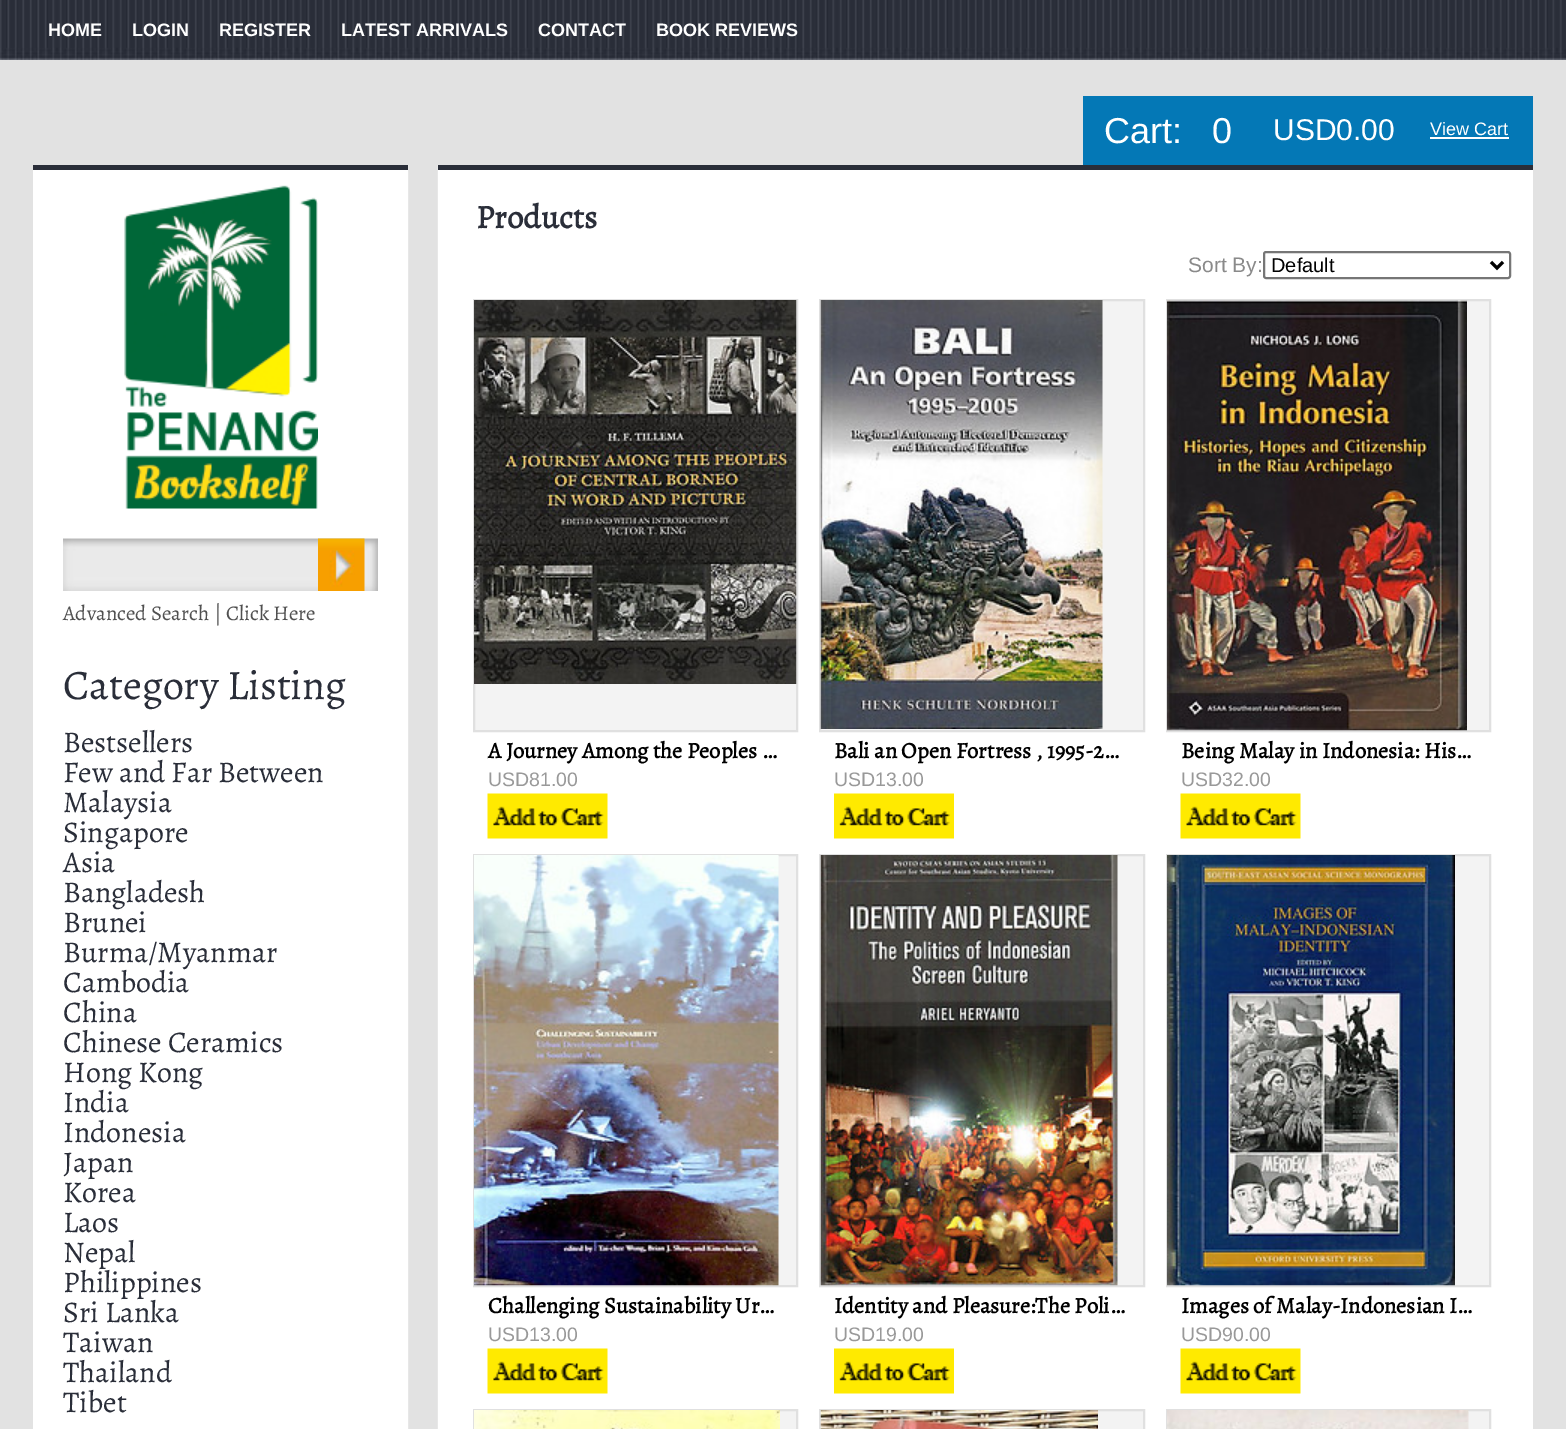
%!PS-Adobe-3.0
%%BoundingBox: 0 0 1566 1429
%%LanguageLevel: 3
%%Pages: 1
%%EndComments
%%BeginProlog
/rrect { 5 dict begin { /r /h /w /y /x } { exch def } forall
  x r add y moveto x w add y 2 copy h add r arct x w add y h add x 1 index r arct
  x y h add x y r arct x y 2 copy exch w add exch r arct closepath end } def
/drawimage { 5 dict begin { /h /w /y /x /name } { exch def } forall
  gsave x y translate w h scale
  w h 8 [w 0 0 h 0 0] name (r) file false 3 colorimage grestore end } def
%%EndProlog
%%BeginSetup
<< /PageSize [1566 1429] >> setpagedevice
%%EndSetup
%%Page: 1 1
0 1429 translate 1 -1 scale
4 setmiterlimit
0.886 setgray
0 0 1566 1429 rectfill
(images/1.raw) 0 0 1566 60 drawimage
0.016 0.471 0.714 setrgbcolor
1083 96 450 69 rectfill
1 setgray
1430 137 79 2 rectfill
(images/2.raw) 408 165 30 1264 drawimage
33 170 375 1259 rectfill
0.165 0.18 0.224 setrgbcolor
33 165 375 5 rectfill
(images/3.raw) 124 185 194 324 drawimage
(images/4.raw) 63 538 315 53 drawimage
(images/5.raw) 318 538 47 53 drawimage
1 setgray
438 170 1095 1259 rectfill
0.165 0.18 0.224 setrgbcolor
438 165 1095 5 rectfill
0.463 setgray
2 setlinewidth
1264 252 246 26 2 rrect stroke
0 setgray
3 setlinewidth
newpath 1491 262 moveto 1497 268 lineto 1503 262 lineto stroke
0.953 setgray
475 684 321 46 rectfill
0.878 setgray
2 setlinewidth
474 300 323 431 rectstroke
(images/6.raw) 474 300 323 384 drawimage
(images/7.raw) 487 793 121 46 drawimage
0.953 setgray
newpath 820 300 moveto 1144 300 lineto 1144 731 lineto 820 731 lineto closepath gsave fill grestore
0.878 setgray
stroke
(images/8.raw) 820 300 283 429 drawimage
(images/9.raw) 834 793 120 46 drawimage
0.953 setgray
1467 301 22 429 rectfill
0.878 setgray
1167 300 323 431 rectstroke
(images/10.raw) 1167 300 300 431 drawimage
(images/11.raw) 1180 793 121 46 drawimage
0.953 setgray
778 856 18 429 rectfill
0.878 setgray
474 855 323 431 rectstroke
(images/12.raw) 474 855 305 431 drawimage
(images/7.raw) 487 1348 121 46 drawimage
0.953 setgray
1117 856 26 429 rectfill
0.878 setgray
820 855 324 431 rectstroke
(images/13.raw) 820 855 298 431 drawimage
(images/9.raw) 834 1348 120 46 drawimage
0.953 setgray
1455 856 34 429 rectfill
0.878 setgray
1167 855 323 431 rectstroke
(images/14.raw) 1167 855 288 431 drawimage
(images/11.raw) 1180 1348 121 46 drawimage
0.953 setgray
780 1411 16 18 rectfill
0.878 setgray
474 1410 323 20 rectstroke
(images/15.raw) 474 1410 306 19 drawimage
0.953 setgray
1098 1411 45 18 rectfill
0.878 setgray
820 1410 324 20 rectstroke
(images/16.raw) 820 1410 278 19 drawimage
0.953 setgray
1468 1411 21 18 rectfill
0.878 setgray
1167 1410 323 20 rectstroke
(images/17.raw) 1167 1410 302 19 drawimage
/LiberationSans-Bold [18 0 0 -18 0 0] selectfont
1 setgray
48 36 moveto (HOME) show
132 36 moveto (LOGIN) show
219 36 moveto (REGISTER) show
341 36 moveto (LATEST ARRIVALS) show
538 36 moveto (CONTACT) show
656 36 moveto (BOOK REVIEWS) show
/LiberationSans-Regular [36 0 0 -36 0 0] selectfont
1104 143 moveto (Cart:) show
1212 143 moveto (0) show
/LiberationSans-Regular [30 0 0 -30 0 0] selectfont
1273 140 moveto (USD0.00) show
/LiberationSans-Regular [18 0 0 -18 0 0] selectfont
1430 135 moveto (View Cart) show
/Alegreya-Regular [21 0 0 -21 0 0] selectfont
0.314 setgray
63 620 moveto (Advanced Search | Click Here) show
/Alegreya-Regular [42 0 0 -42 0 0] selectfont
0.165 0.18 0.224 setrgbcolor
63 699 moveto (Category Listing) show
/Alegreya-Regular [30 0 0 -30 0 0] selectfont
63 752 moveto (Bestsellers) show
63 782 moveto (Few and Far Between) show
63 812 moveto (Malaysia) show
63 842 moveto (Singapore) show
63 872 moveto (Asia) show
63 902 moveto (Bangladesh) show
63 932 moveto (Brunei) show
63 962 moveto (Burma/Myanmar) show
63 992 moveto (Cambodia) show
63 1022 moveto (China) show
63 1052 moveto (Chinese Ceramics) show
63 1082 moveto (Hong Kong) show
63 1112 moveto (India) show
63 1142 moveto (Indonesia) show
63 1172 moveto (Japan) show
63 1202 moveto (Korea) show
63 1232 moveto (Laos) show
63 1262 moveto (Nepal) show
63 1292 moveto (Philippines) show
63 1322 moveto (Sri Lanka) show
63 1352 moveto (Taiwan) show
63 1382 moveto (Thailand) show
63 1412 moveto (Tibet) show
/Alegreya-Bold [33 0 0 -33 0 0] selectfont
476 228 moveto (Products) show
/LiberationSans-Regular [21 0 0 -21 0 0] selectfont
0.541 setgray
1188 272 moveto (Sort By:) show
/LiberationSans-Regular [20 0 0 -20 0 0] selectfont
0 setgray
1271 272 moveto (Default) show
/Alegreya-Bold [22.5 0 0 -22.5 0 0] selectfont
488 758 moveto (A Journey Among the Peoples …) show
/LiberationSans-Regular [19.5 0 0 -19.5 0 0] selectfont
0.6 setgray
488 786 moveto (USD81.00) show
/Alegreya-Bold [22.5 0 0 -22.5 0 0] selectfont
0 setgray
834 758 moveto (Bali an Open Fortress , 1995-2…) show
/LiberationSans-Regular [19.5 0 0 -19.5 0 0] selectfont
0.6 setgray
834 786 moveto (USD13.00) show
/Alegreya-Bold [22.5 0 0 -22.5 0 0] selectfont
0 setgray
1181 758 moveto (Being Malay in Indonesia: His…) show
/LiberationSans-Regular [19.5 0 0 -19.5 0 0] selectfont
0.6 setgray
1181 786 moveto (USD32.00) show
/Alegreya-Bold [22.5 0 0 -22.5 0 0] selectfont
0 setgray
488 1313 moveto (Challenging Sustainability Ur…) show
/LiberationSans-Regular [19.5 0 0 -19.5 0 0] selectfont
0.6 setgray
488 1341 moveto (USD13.00) show
/Alegreya-Bold [22.5 0 0 -22.5 0 0] selectfont
0 setgray
834 1313 moveto (Identity and Pleasure:The Poli…) show
/LiberationSans-Regular [19.5 0 0 -19.5 0 0] selectfont
0.6 setgray
834 1341 moveto (USD19.00) show
/Alegreya-Bold [22.5 0 0 -22.5 0 0] selectfont
0 setgray
1181 1313 moveto (Images of Malay-Indonesian I…) show
/LiberationSans-Regular [19.5 0 0 -19.5 0 0] selectfont
0.6 setgray
1181 1341 moveto (USD90.00) show
showpage
%%EOF
